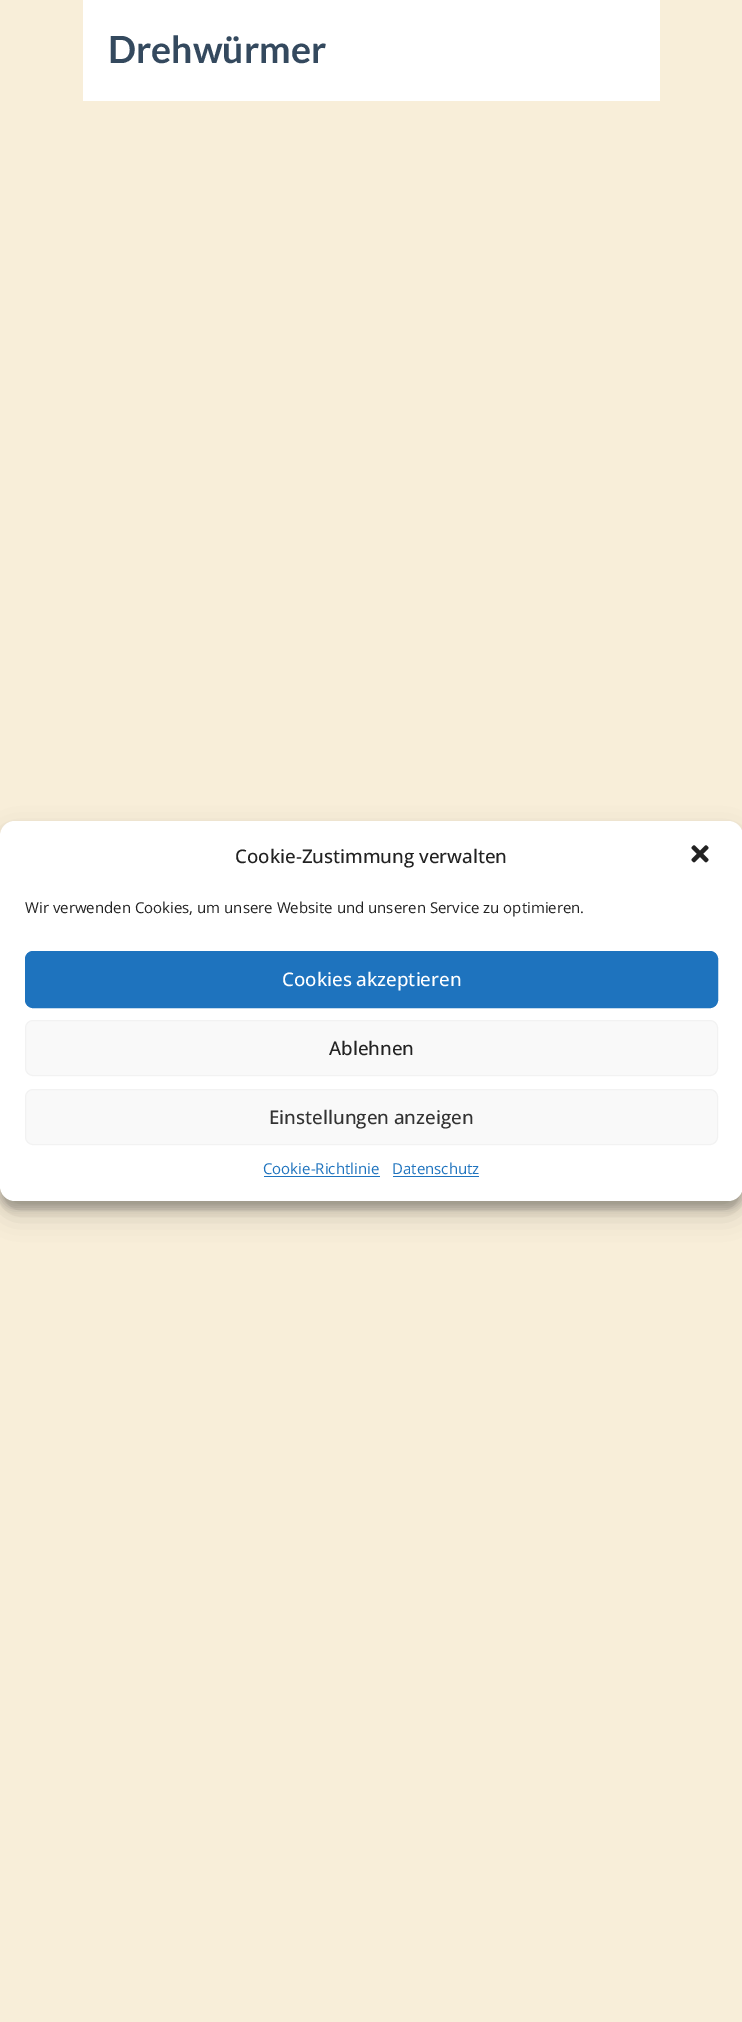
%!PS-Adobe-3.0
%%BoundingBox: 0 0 742 2022
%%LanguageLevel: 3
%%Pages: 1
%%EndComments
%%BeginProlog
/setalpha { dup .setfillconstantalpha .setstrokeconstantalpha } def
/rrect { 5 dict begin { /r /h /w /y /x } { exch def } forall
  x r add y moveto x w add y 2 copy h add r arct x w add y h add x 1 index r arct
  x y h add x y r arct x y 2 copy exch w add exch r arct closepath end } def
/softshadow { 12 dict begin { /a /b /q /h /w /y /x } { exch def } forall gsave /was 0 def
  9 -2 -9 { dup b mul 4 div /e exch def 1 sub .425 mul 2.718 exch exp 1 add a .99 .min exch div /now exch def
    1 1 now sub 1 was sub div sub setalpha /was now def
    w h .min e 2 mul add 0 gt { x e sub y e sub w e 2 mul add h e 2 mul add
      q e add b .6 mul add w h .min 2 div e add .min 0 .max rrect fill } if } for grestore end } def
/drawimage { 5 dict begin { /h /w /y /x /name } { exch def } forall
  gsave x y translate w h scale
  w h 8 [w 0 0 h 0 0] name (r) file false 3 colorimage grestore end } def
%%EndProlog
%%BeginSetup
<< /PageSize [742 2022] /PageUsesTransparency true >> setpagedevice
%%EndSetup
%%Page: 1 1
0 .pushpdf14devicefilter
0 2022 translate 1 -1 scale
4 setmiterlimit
0.973 0.933 0.851 setrgbcolor
0 0 742 2022 rectfill
1 setgray
83 0 577 101 rectfill
0 setgray
0 829 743 380 15 4 0.23 softshadow
0 834 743 380 15 12.5 0.19 softshadow
1 setgray
0 821 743 380 15 rrect fill
(images/1.raw) 691 845 18 18 drawimage
0.118 0.451 0.745 setrgbcolor
25.5 951.5 692 56 7.5 rrect gsave fill grestore
stroke
0.976 setgray
25.5 1020.5 692 55 7.5 rrect gsave fill grestore
0.949 setgray
stroke
0.976 setgray
25.5 1089.5 692 55 7.5 rrect gsave fill grestore
0.949 setgray
stroke
0.118 0.451 0.745 setrgbcolor
264 1176 116 1 rectfill
393 1176 86 1 rectfill
/Lato-Bold [37.5 0 0 -37.5 0 0] selectfont
0.204 0.286 0.369 setrgbcolor
108 63 moveto (Drehwürmer) show
/OpenSans-Medium [18.75 0 0 -18.75 0 0] selectfont
0.133 setgray
235 863 moveto (Cookie-Zustimmung verwalten) show
/OpenSans-Regular [15 0 0 -15 0 0] selectfont
25 913 moveto (Wir verwenden Cookies, um unsere Website und unseren Service zu optimieren.) show
/OpenSans-Medium [18.75 0 0 -18.75 0 0] selectfont
1 setgray
282 986 moveto (Cookies akzeptieren) show
0.133 setgray
329 1055 moveto (Ablehnen) show
0.2 setgray
269 1124 moveto (Einstellungen anzeigen) show
/OpenSans-Regular [15 0 0 -15 0 0] selectfont
0.118 0.451 0.745 setrgbcolor
263 1174 moveto (Cookie-Richtlinie) show
392 1174 moveto (Datenschutz) show
.poppdf14devicefilter showpage
%%EOF
